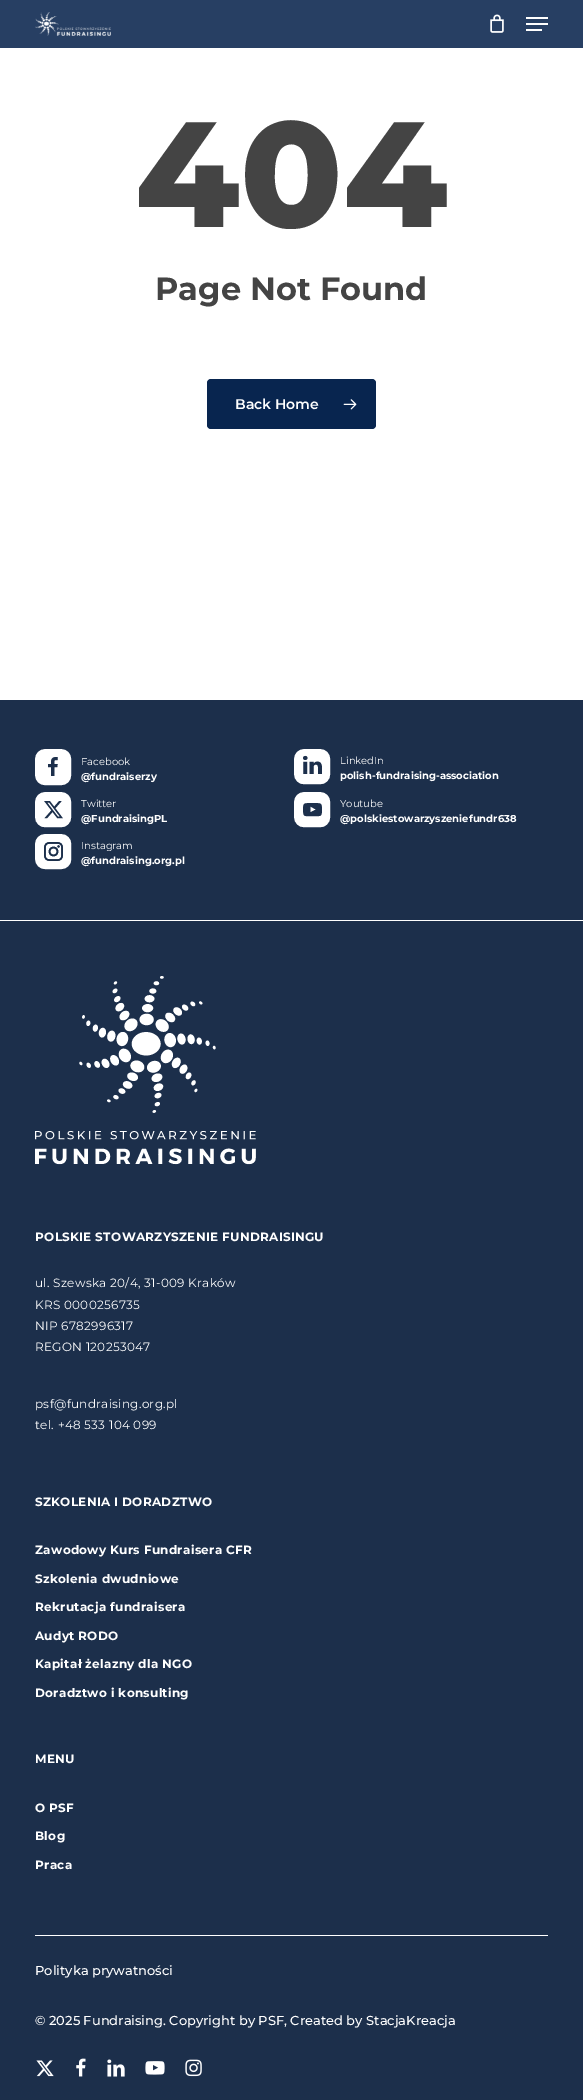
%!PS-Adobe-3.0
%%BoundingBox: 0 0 583 2100
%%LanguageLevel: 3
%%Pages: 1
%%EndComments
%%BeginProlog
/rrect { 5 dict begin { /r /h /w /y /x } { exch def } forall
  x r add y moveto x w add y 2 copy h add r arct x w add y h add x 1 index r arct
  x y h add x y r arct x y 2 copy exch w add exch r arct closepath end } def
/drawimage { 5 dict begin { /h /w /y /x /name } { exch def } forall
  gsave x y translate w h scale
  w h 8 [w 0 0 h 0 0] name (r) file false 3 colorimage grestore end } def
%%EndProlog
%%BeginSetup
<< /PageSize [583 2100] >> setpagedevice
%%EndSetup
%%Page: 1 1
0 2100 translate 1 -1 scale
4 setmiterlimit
1 setgray
0 0 583 2100 rectfill
0.153 0.247 0.388 setrgbcolor
0 0 583 48 rectfill
(images/1.raw) 35 12 76 24 drawimage
(images/2.raw) 490 14 14 19 drawimage
1 setgray
526 17 22 2 rectfill
526 29 16 2 rectfill
526 23 22 2 rectfill
0.031 0.145 0.31 setrgbcolor
207 379 169 50 4 rrect fill
(images/3.raw) 343 399 14 11 drawimage
0.11 0.184 0.294 setrgbcolor
0 700 583 220 rectfill
(images/4.raw) 35 749 37 37 drawimage
(images/5.raw) 294 749 37 36 drawimage
(images/6.raw) 35 792 37 36 drawimage
(images/7.raw) 294 792 37 36 drawimage
(images/8.raw) 35 834 37 36 drawimage
0 921 583 1179 rectfill
1 setgray
35 1935 513 1 rectfill
(images/9.raw) 35 976 221 189 drawimage
(images/10.raw) 36 2060 18 17 drawimage
(images/11.raw) 76 2058 10 19 drawimage
(images/12.raw) 107 2059 18 18 drawimage
(images/13.raw) 145 2061 20 14 drawimage
(images/14.raw) 185 2059 17 18 drawimage
/Montserrat-ExtraBold [150 0 0 -150 0 0] selectfont
0.267 setgray
135 227 moveto (404) show
/Montserrat-Bold [32 0 0 -32 0 0] selectfont
155 300 moveto (Page Not Found) show
/Montserrat-SemiBold [14 0 0 -14 0 0] selectfont
1 setgray
235 409 moveto (Back Home) show
/Montserrat-Regular [10 0 0 -10 0 0] selectfont
81 765 moveto (Facebook) show
/Montserrat-Bold [10 0 0 -10 0 0] selectfont
81 780 moveto (@fundraiserzy) show
/Montserrat-Regular [10 0 0 -10 0 0] selectfont
340 764 moveto (LinkedIn) show
/Montserrat-Bold [10 0 0 -10 0 0] selectfont
340 779 moveto (polish-fundraising-association) show
/Montserrat-Regular [10 0 0 -10 0 0] selectfont
81 807 moveto (Twitter) show
/Montserrat-Bold [10 0 0 -10 0 0] selectfont
81 822 moveto (@FundraisingPL) show
/Montserrat-Regular [10 0 0 -10 0 0] selectfont
340 807 moveto (Youtube) show
/Montserrat-Bold [10 0 0 -10 0 0] selectfont
340 822 moveto (@polskiestowarzyszeniefundr638) show
/Montserrat-Regular [10 0 0 -10 0 0] selectfont
81 849 moveto (Instagram) show
/Montserrat-Bold [10 0 0 -10 0 0] selectfont
81 864 moveto (@fundraising.org.pl) show
/Montserrat-Bold [12 0 0 -12 0 0] selectfont
35 1241 moveto 0.3 0 (POLSKIE STOWARZYSZENIE FUNDRAISINGU) ashow
/Montserrat-Regular [12 0 0 -12 0 0] selectfont
35 1287 moveto 0.3 0 (ul. Szewska 20/4, 31-009 Kraków) ashow
35 1309 moveto 0.3 0 (KRS 0000256735) ashow
35 1330 moveto 0.3 0 (NIP 6782996317) ashow
35 1351 moveto 0.3 0 (REGON 120253047) ashow
35 1408 moveto 0.3 0 (psf@fundraising.org.pl) ashow
35 1429 moveto 0.3 0 (tel. +48 533 104 099) ashow
/Montserrat-Bold [12 0 0 -12 0 0] selectfont
35 1506 moveto 0.3 0 (SZKOLENIA I DORADZTWO) ashow
35 1554 moveto 0.3 0 (Zawodowy Kurs Fundraisera CFR) ashow
35 1583 moveto 0.3 0 (Szkolenia dwudniowe) ashow
35 1611 moveto 0.3 0 (Rekrutacja fundraisera) ashow
35 1640 moveto 0.3 0 (Audyt RODO) ashow
35 1668 moveto 0.3 0 (Kapitał żelazny dla NGO) ashow
35 1697 moveto 0.3 0 (Doradztwo i konsulting) ashow
35 1763 moveto 0.3 0 (MENU) ashow
35 1812 moveto 0.3 0 (O PSF) ashow
35 1840 moveto 0.3 0 (Blog) ashow
35 1869 moveto 0.3 0 (Praca) ashow
/Montserrat-Medium [13 0 0 -13 0 0] selectfont
35 1975 moveto (Polityka prywatności) show
35 2025 moveto (© 2025 Fundraising. Copyright by PSF, Created by StacjaKreacja) show
showpage
%%EOF
